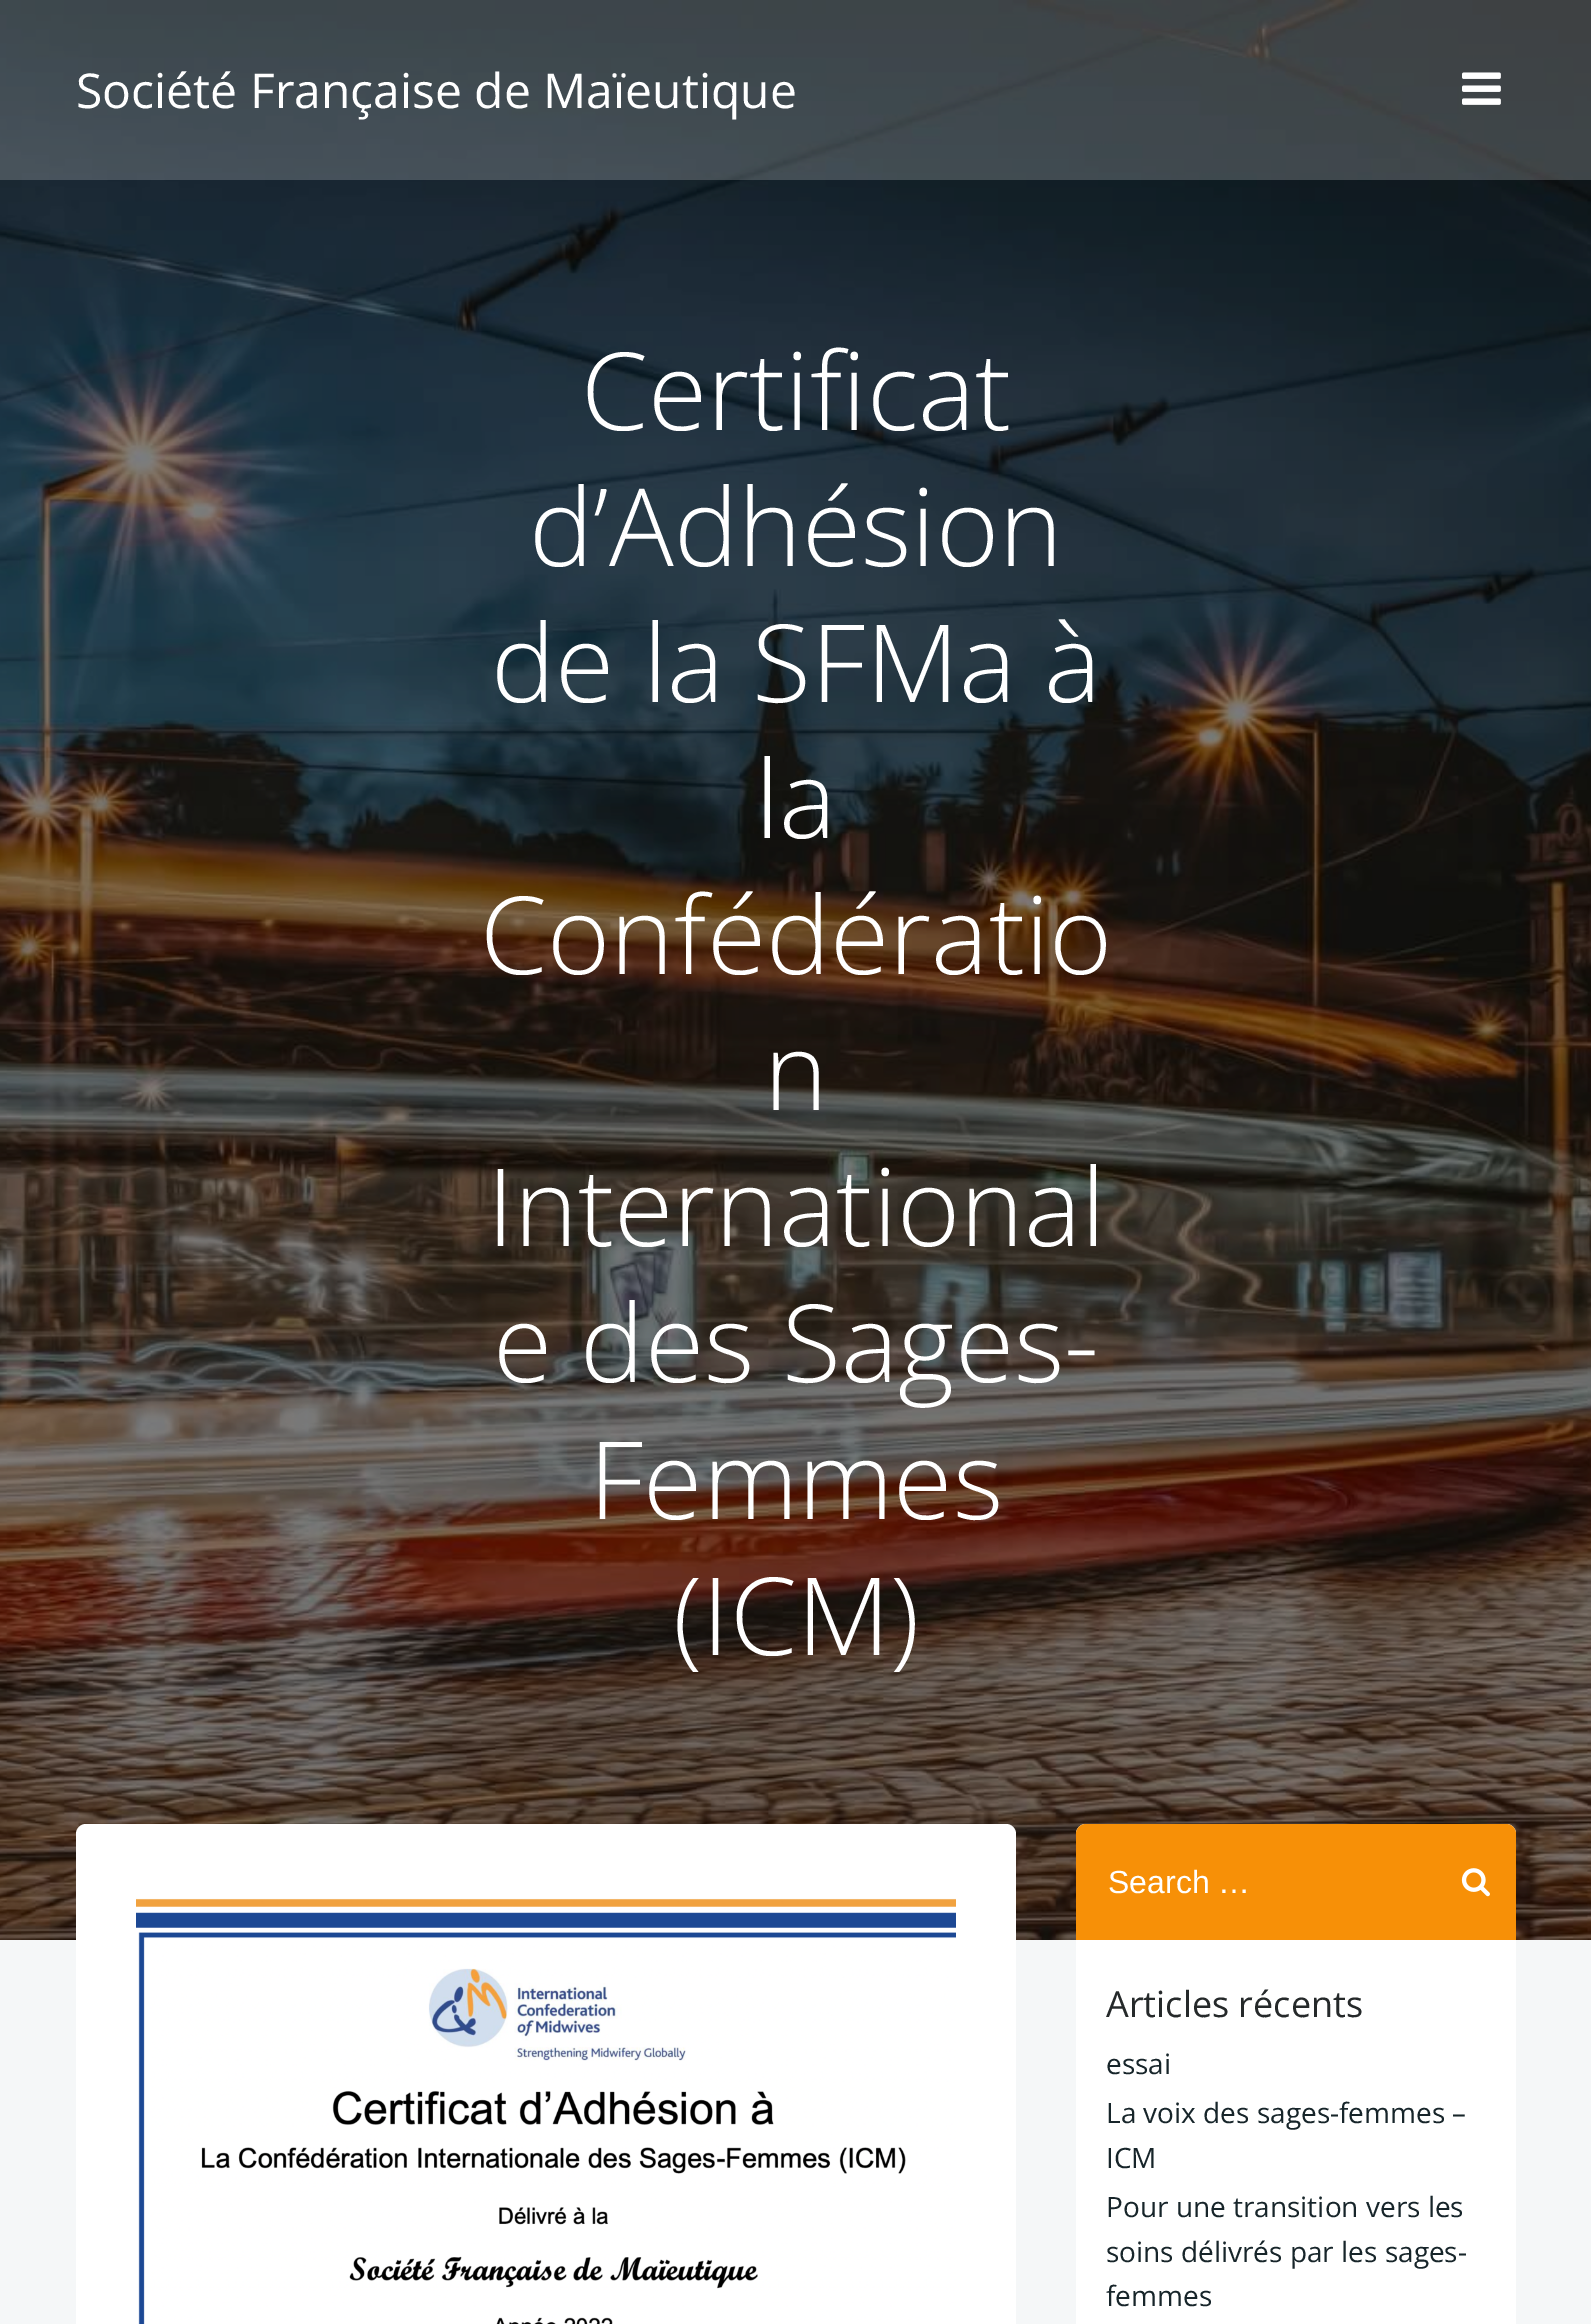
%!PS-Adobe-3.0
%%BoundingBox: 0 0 1591 2324
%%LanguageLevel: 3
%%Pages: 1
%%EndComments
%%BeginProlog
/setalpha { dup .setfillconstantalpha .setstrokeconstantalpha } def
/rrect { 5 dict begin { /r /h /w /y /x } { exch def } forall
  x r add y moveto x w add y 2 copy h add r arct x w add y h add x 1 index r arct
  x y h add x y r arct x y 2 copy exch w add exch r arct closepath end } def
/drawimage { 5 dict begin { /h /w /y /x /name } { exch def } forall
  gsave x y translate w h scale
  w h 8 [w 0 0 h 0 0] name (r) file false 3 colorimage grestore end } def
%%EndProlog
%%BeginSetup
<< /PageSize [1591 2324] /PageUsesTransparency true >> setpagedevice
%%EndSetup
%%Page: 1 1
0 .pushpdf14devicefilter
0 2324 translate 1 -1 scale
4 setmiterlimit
1 setgray
0 0 1591 2324 rectfill
(images/2.raw) 0 0 1591 1940 drawimage
0.2 setalpha
0 0 1591 180 rectfill
1 setalpha
(images/1.raw) 1462 72 39 33 drawimage
0.961 0.969 0.973 setrgbcolor
0 1940 1591 384 rectfill
1 setgray
76 1824 940 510 10 rrect fill
(images/3.raw) 136 1898 820 426 drawimage
1076 1824 440 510 10 rrect fill
0.969 0.565 0.027 setrgbcolor
newpath 1086 1824 moveto 1506 1824 lineto 1511.5 1824 1516 1828.5 1516 1834 curveto 1516 1940 lineto 1076 1940 lineto 1076 1834 lineto 1076 1828.5 1080.5 1824 1086 1824 curveto closepath fill
(images/4.raw) 1461 1868 29 29 drawimage
/OpenSans-Regular [48 0 0 -48 0 0] selectfont
1 setgray
76 108 moveto (Société Française de Maïeutique) show
/OpenSans-Light [108 0 0 -108 0 0] selectfont
581 430 moveto (Certificat) show
529 566 moveto (d’Adhésion) show
491 702 moveto (de la SFMa à) show
755 838 moveto (la) show
480 974 moveto (Confédératio) show
764 1110 moveto (n) show
487 1246 moveto (International) show
493 1382 moveto (e des Sages-) show
589 1519 moveto (Femmes) show
673 1655 moveto (\(ICM\)) show
/LiberationSans-Regular [32 0 0 -32 0 0] selectfont
1108 1893 moveto (Search …) show
/OpenSans-Regular [36 0 0 -36 0 0] selectfont
0.145 0.161 0.165 setrgbcolor
1106 2017 moveto (Articles récents) show
/OpenSans-Regular [28 0 0 -28 0 0] selectfont
0.09 0.145 0.165 setrgbcolor
1106 2074 moveto (essai) show
1106 2123 moveto (La voix des sages-femmes –) show
1106 2168 moveto (ICM) show
1106 2217 moveto (Pour une transition vers les) show
1106 2262 moveto (soins délivrés par les sages-) show
1106 2306 moveto (femmes) show
.poppdf14devicefilter showpage
%%EOF
